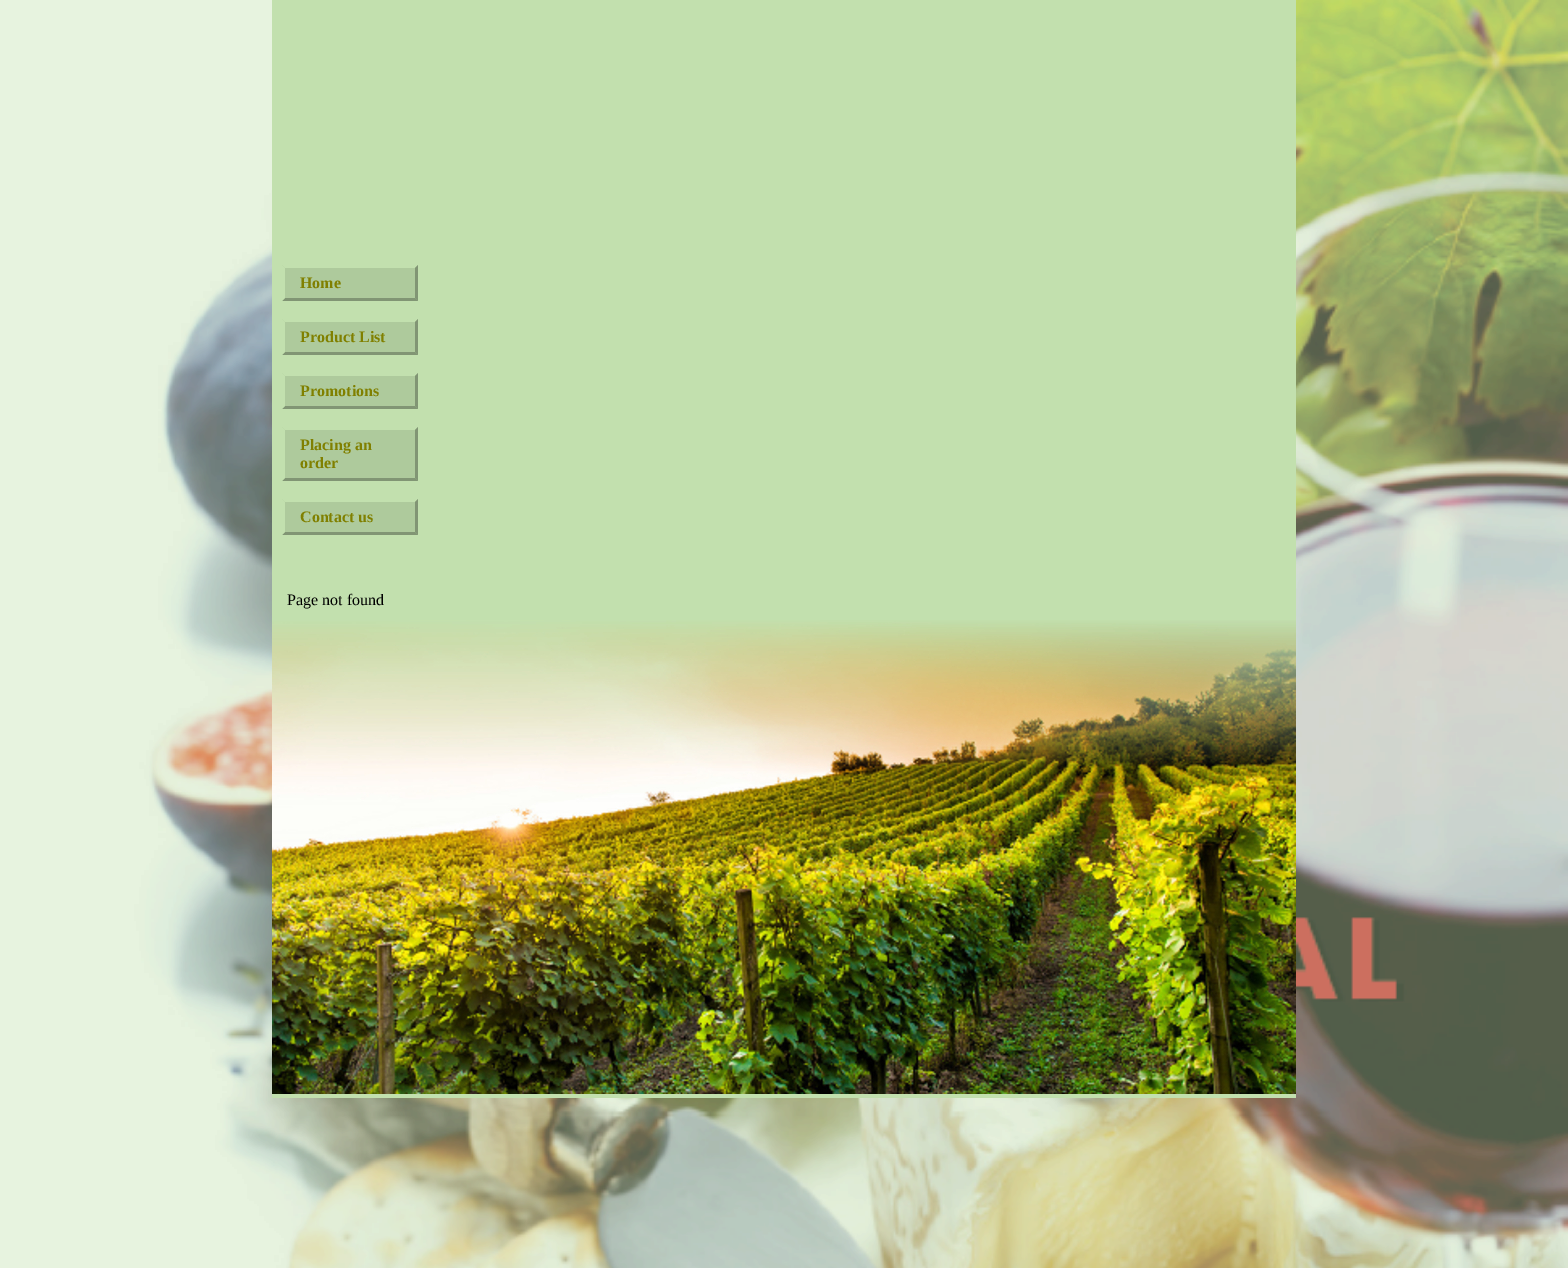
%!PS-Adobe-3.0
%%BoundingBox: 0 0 1568 1268
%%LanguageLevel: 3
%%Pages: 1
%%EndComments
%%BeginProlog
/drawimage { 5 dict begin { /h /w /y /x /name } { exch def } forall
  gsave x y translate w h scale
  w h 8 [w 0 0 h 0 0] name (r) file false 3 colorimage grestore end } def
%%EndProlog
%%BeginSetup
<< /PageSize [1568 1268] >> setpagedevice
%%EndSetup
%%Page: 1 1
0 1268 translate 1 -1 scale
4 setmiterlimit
0.761 0.878 0.682 setrgbcolor
0 0 1568 1268 rectfill
(images/1.raw) 0 0 1568 1268 drawimage
272 0 1024 1098 rectfill
0.682 0.792 0.612 setrgbcolor
282 265 136 36 rectfill
0.761 0.878 0.682 setrgbcolor
newpath 282 265 moveto 418 265 lineto 415 268 lineto 285 268 lineto closepath fill
0.506 0.584 0.455 setrgbcolor
newpath 418 265 moveto 418 301 lineto 415 298 lineto 415 268 lineto closepath fill
newpath 418 301 moveto 282 301 lineto 285 298 lineto 415 298 lineto closepath fill
0.761 0.878 0.682 setrgbcolor
newpath 282 301 moveto 282 265 lineto 285 268 lineto 285 298 lineto closepath fill
0.682 0.792 0.612 setrgbcolor
282 319 136 36 rectfill
0.761 0.878 0.682 setrgbcolor
newpath 282 319 moveto 418 319 lineto 415 322 lineto 285 322 lineto closepath fill
0.506 0.584 0.455 setrgbcolor
newpath 418 319 moveto 418 355 lineto 415 352 lineto 415 322 lineto closepath fill
newpath 418 355 moveto 282 355 lineto 285 352 lineto 415 352 lineto closepath fill
0.761 0.878 0.682 setrgbcolor
newpath 282 355 moveto 282 319 lineto 285 322 lineto 285 352 lineto closepath fill
0.682 0.792 0.612 setrgbcolor
282 373 136 36 rectfill
0.761 0.878 0.682 setrgbcolor
newpath 282 373 moveto 418 373 lineto 415 376 lineto 285 376 lineto closepath fill
0.506 0.584 0.455 setrgbcolor
newpath 418 373 moveto 418 409 lineto 415 406 lineto 415 376 lineto closepath fill
newpath 418 409 moveto 282 409 lineto 285 406 lineto 415 406 lineto closepath fill
0.761 0.878 0.682 setrgbcolor
newpath 282 409 moveto 282 373 lineto 285 376 lineto 285 406 lineto closepath fill
0.682 0.792 0.612 setrgbcolor
282 427 136 54 rectfill
0.761 0.878 0.682 setrgbcolor
newpath 282 427 moveto 418 427 lineto 415 430 lineto 285 430 lineto closepath fill
0.506 0.584 0.455 setrgbcolor
newpath 418 427 moveto 418 481 lineto 415 478 lineto 415 430 lineto closepath fill
newpath 418 481 moveto 282 481 lineto 285 478 lineto 415 478 lineto closepath fill
0.761 0.878 0.682 setrgbcolor
newpath 282 481 moveto 282 427 lineto 285 430 lineto 285 478 lineto closepath fill
0.682 0.792 0.612 setrgbcolor
282 499 136 36 rectfill
0.761 0.878 0.682 setrgbcolor
newpath 282 499 moveto 418 499 lineto 415 502 lineto 285 502 lineto closepath fill
0.506 0.584 0.455 setrgbcolor
newpath 418 499 moveto 418 535 lineto 415 532 lineto 415 502 lineto closepath fill
newpath 418 535 moveto 282 535 lineto 285 532 lineto 415 532 lineto closepath fill
0.761 0.878 0.682 setrgbcolor
newpath 282 535 moveto 282 499 lineto 285 502 lineto 285 532 lineto closepath fill
(images/2.raw) 272 620 1024 474 drawimage
/LiberationSerif-Bold [16 0 0 -16 0 0] selectfont
0.502 0.502 0 setrgbcolor
300 288 moveto (Home) show
300 342 moveto (Product List) show
300 396 moveto (Promotions) show
300 450 moveto (Placing an) show
300 468 moveto (order) show
300 522 moveto (Contact us) show
/LiberationSerif-Regular [16 0 0 -16 0 0] selectfont
0 setgray
287 605 moveto (Page not found) show
showpage
%%EOF
